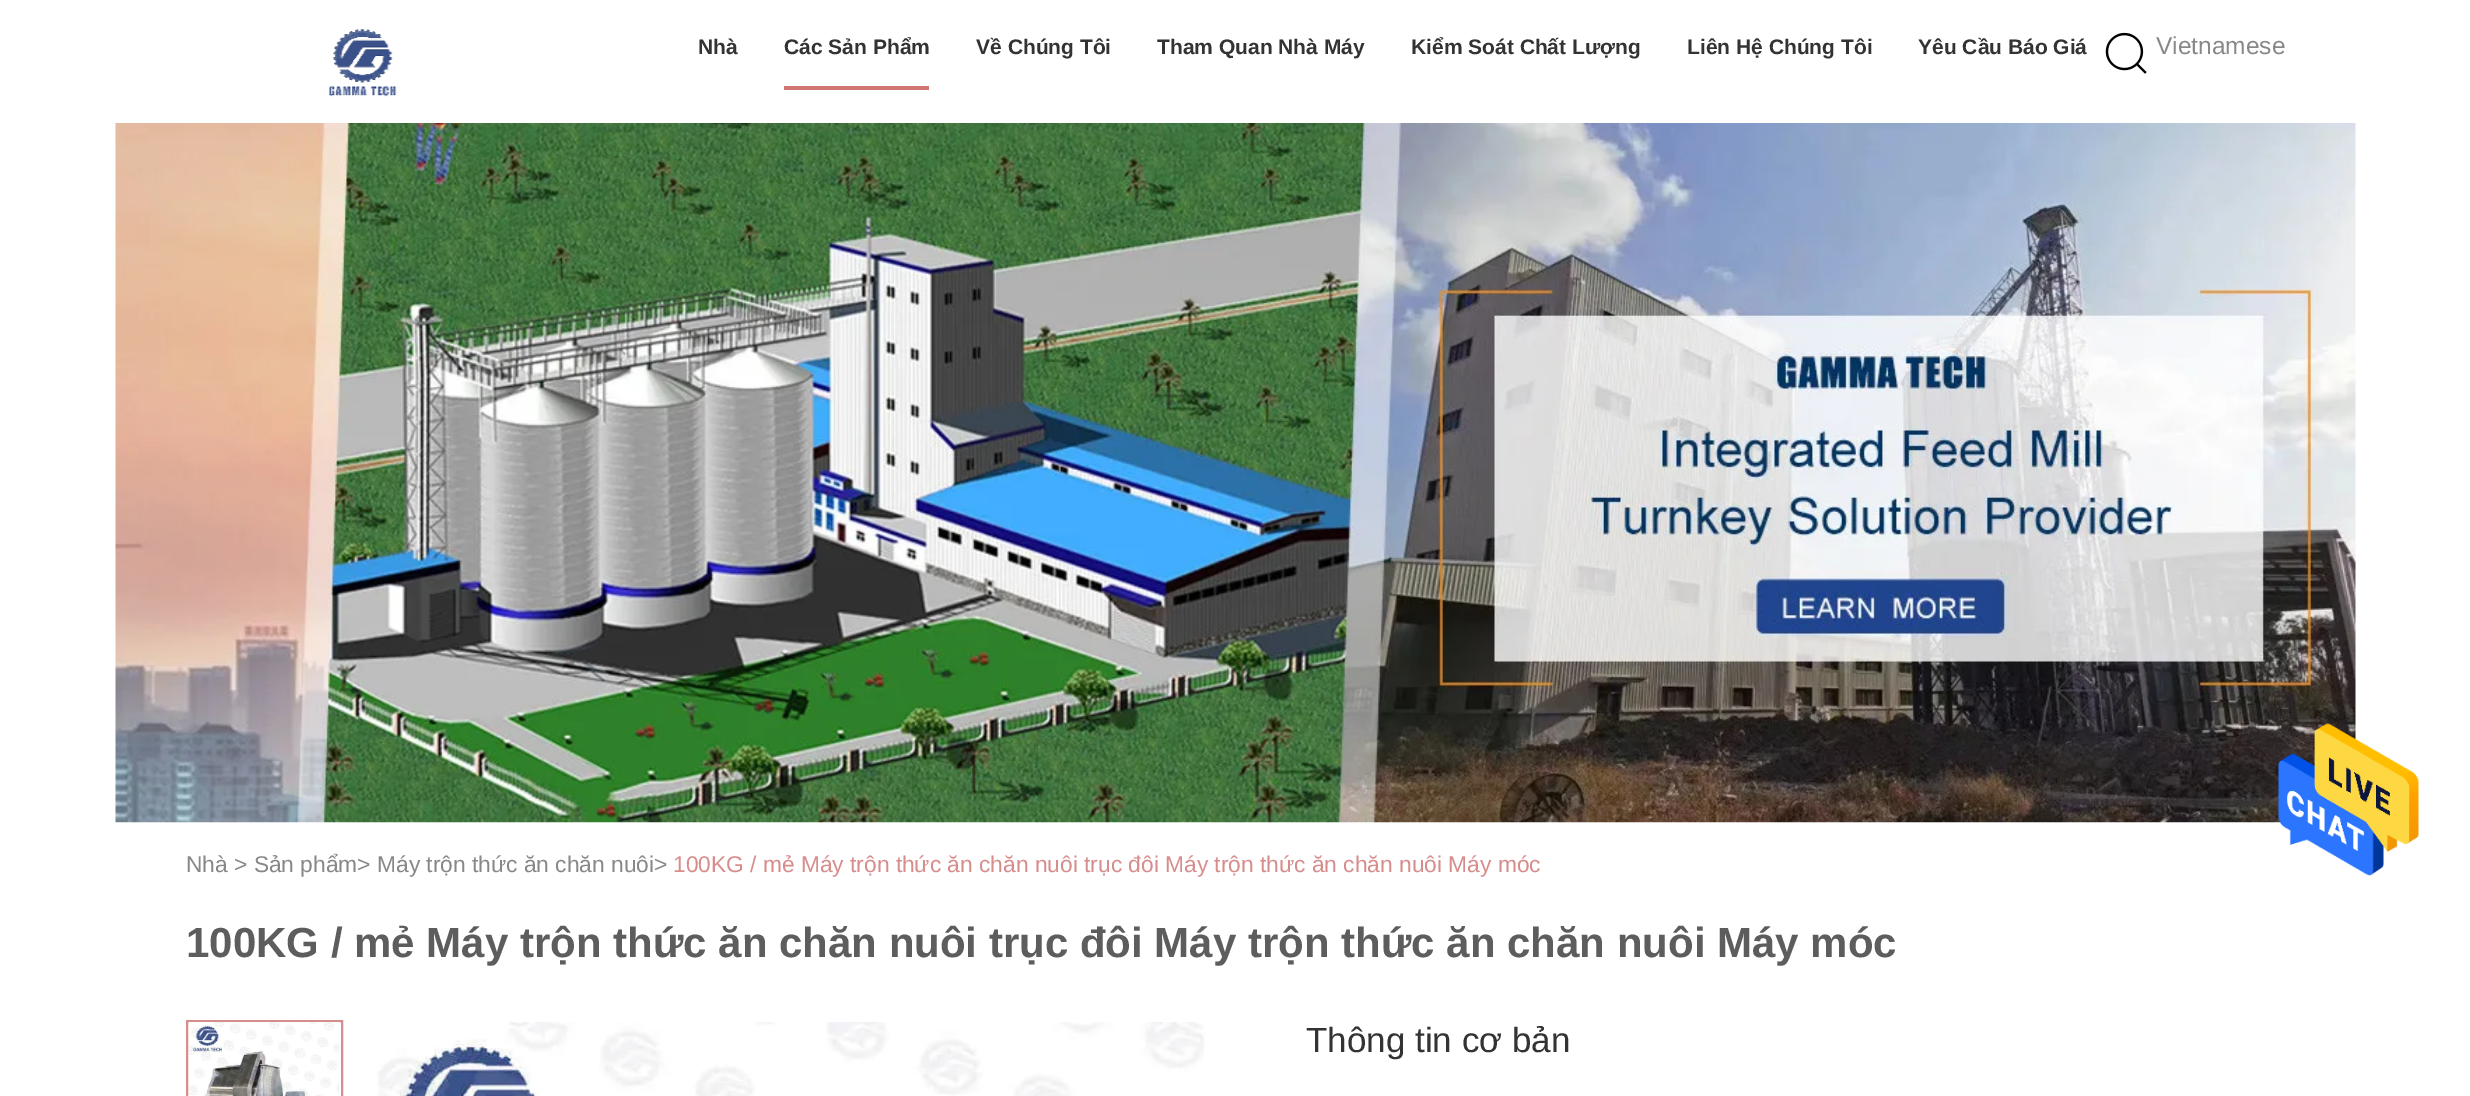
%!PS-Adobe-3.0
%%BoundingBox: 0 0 2470 1096
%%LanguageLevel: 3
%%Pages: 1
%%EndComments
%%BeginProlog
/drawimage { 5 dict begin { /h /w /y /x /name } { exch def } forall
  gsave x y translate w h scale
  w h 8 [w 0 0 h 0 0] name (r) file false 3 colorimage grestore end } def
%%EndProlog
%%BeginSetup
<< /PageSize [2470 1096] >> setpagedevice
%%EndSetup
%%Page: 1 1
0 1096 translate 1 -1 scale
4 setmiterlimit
1 setgray
0 0 2470 1096 rectfill
(images/1.raw) 329 29 68 68 drawimage
0.82 0.455 0.455 setrgbcolor
784 86 145 4 rectfill
(images/2.raw) 2105 32 42 42 drawimage
(images/3.raw) 115 123 2241 700 drawimage
(images/4.raw) 2278 723 141 153 drawimage
0.847 0.553 0.553 setrgbcolor
2 setlinewidth
187 1021 155 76 rectstroke
(images/5.raw) 189 1022 151 74 drawimage
(images/6.raw) 377 1022 828 74 drawimage
/LiberationSans-Bold [21 0 0 -21 0 0] selectfont
0.2 setgray
698 54 moveto (Nhà) show
784 54 moveto (Các Sản Phẩm) show
976 54 moveto (Về Chúng Tôi) show
1157 54 moveto (Tham Quan Nhà Máy) show
1411 54 moveto (Kiểm Soát Chất Lượng) show
1687 54 moveto (Liên Hệ Chúng Tôi) show
1918 54 moveto (Yêu Cầu Báo Giá) show
/LiberationSans-Regular [24.5 0 0 -24.5 0 0] selectfont
0.533 setgray
2156 54 moveto (Vietnamese) show
/LiberationSans-Regular [22.75 0 0 -22.75 0 0] selectfont
186 872 moveto (Nhà > Sản phẩm> Máy trộn thức ăn chăn nuôi>) show
0.847 0.553 0.553 setrgbcolor
673 872 moveto (100KG / mẻ Máy trộn thức ăn chăn nuôi trục đôi Máy trộn thức ăn chăn nuôi Máy móc) show
/LiberationSans-Bold [42 0 0 -42 0 0] selectfont
0.365 setgray
186 957 moveto (100KG / mẻ Máy trộn thức ăn chăn nuôi trục đôi Máy trộn thức ăn chăn nuôi Máy móc) show
/LiberationSans-Regular [35 0 0 -35 0 0] selectfont
0.2 setgray
1306 1052 moveto (Thông tin cơ bản) show
showpage
%%EOF
